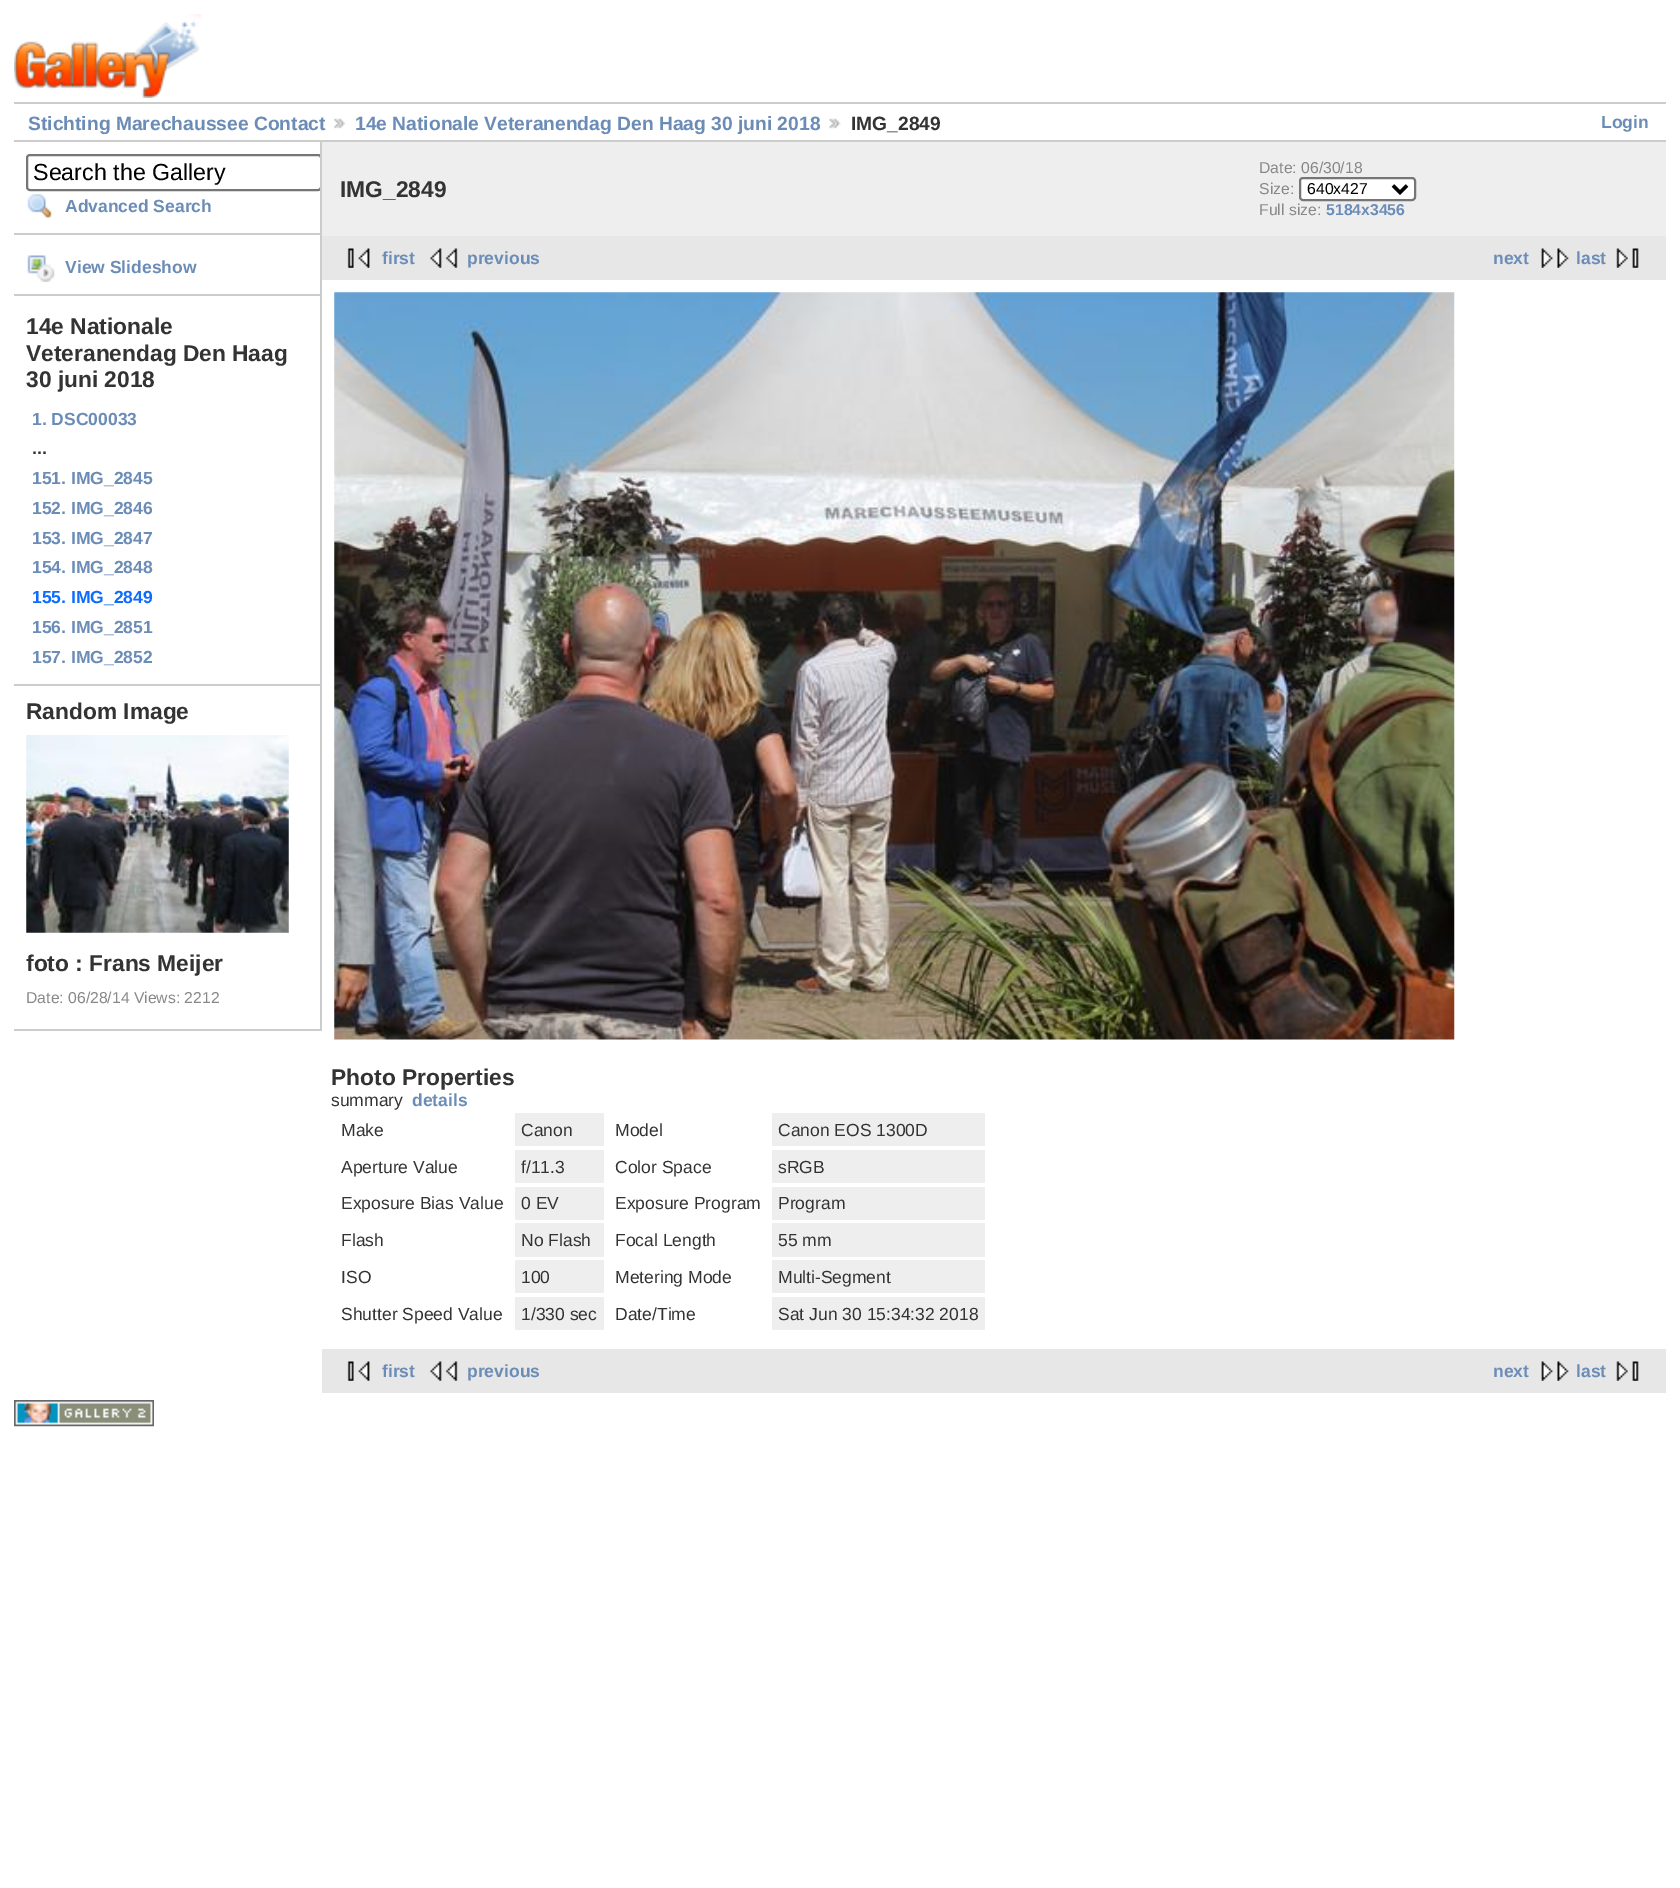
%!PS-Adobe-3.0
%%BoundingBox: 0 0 1680 1888
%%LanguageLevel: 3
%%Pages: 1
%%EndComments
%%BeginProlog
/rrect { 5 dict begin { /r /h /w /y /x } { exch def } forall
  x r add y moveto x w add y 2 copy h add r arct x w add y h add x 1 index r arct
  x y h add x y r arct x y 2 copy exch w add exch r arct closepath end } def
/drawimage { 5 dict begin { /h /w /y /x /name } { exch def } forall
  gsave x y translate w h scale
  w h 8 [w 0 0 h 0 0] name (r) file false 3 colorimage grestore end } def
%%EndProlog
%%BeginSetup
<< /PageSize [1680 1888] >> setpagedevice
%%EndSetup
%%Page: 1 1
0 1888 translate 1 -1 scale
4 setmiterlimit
1 setgray
0 0 1680 1888 rectfill
(images/1.raw) 14 14 188 84 drawimage
0.8 setgray
14 102 1652 2 rectfill
14 140 1652 2 rectfill
(images/2.raw) 334 118 12 11 drawimage
(images/3.raw) 829 118 12 11 drawimage
320 142 2 889 rectfill
14 233 306 2 rectfill
gsave
14 142 306 889 rectclip
0.463 setgray
2 setlinewidth
27 155 294 35 3 rrect stroke
grestore
(images/4.raw) 27 193 25 26 drawimage
14 294 306 2 rectfill
(images/5.raw) 27 255 28 27 drawimage
14 684 306 2 rectfill
14 1029 306 2 rectfill
(images/6.raw) 26 735 263 198 drawimage
0.933 setgray
322 142 1344 94 rectfill
1 setgray
1300 178 115 22 3 rrect gsave fill grestore
0.463 setgray
2 setlinewidth
stroke
0 setgray
3.5 setlinewidth
newpath 1393 185.5 moveto 1400 192.5 lineto 1407 185.5 lineto stroke
0.906 setgray
322 236 1344 44 rectfill
(images/7.raw) 347 248 23 20 drawimage
(images/8.raw) 430 248 28 20 drawimage
(images/9.raw) 1541 248 28 20 drawimage
(images/10.raw) 1616 248 23 20 drawimage
(images/11.raw) 334 292 1121 748 drawimage
0.933 setgray
515 1113 89 33 rectfill
772 1113 213 33 rectfill
515 1150 89 33 rectfill
772 1150 213 33 rectfill
515 1187 89 33 rectfill
772 1187 213 33 rectfill
515 1223 89 34 rectfill
772 1223 213 34 rectfill
515 1260 89 33 rectfill
772 1260 213 33 rectfill
515 1297 89 33 rectfill
772 1297 213 33 rectfill
0.906 setgray
322 1349 1344 44 rectfill
(images/7.raw) 347 1361 23 20 drawimage
(images/8.raw) 430 1361 28 20 drawimage
(images/9.raw) 1541 1361 28 20 drawimage
(images/10.raw) 1616 1361 23 20 drawimage
(images/12.raw) 14 1400 140 27 drawimage
/LiberationSans-Bold [19.25 0 0 -19.25 0 0] selectfont
0.42 0.549 0.718 setrgbcolor
28 130 moveto (Stichting Marechaussee Contact) show
355 130 moveto (14e Nationale Veteranendag Den Haag 30 juni 2018) show
0.2 setgray
851 130 moveto (IMG_2849) show
/LiberationSans-Bold [17.5 0 0 -17.5 0 0] selectfont
0.42 0.549 0.718 setrgbcolor
1601 128 moveto (Login) show
/LiberationSans-Regular [23.25 0 0 -23.25 0 0] selectfont
0 setgray
33 180 moveto (Search the Gallery) show
/LiberationSans-Bold [17.5 0 0 -17.5 0 0] selectfont
0.42 0.549 0.718 setrgbcolor
65 212 moveto (Advanced Search) show
65 273 moveto (View Slideshow) show
/LiberationSans-Bold [22.75 0 0 -22.75 0 0] selectfont
0.2 setgray
26 334 moveto (14e Nationale) show
26 361 moveto (Veteranendag Den Haag) show
26 387 moveto (30 juni 2018) show
/LiberationSans-Bold [17.5 0 0 -17.5 0 0] selectfont
0.42 0.549 0.718 setrgbcolor
32 425 moveto (1. DSC00033) show
0.2 setgray
32 454 moveto (...) show
0.42 0.549 0.718 setrgbcolor
32 484 moveto (151. IMG_2845) show
32 514 moveto (152. IMG_2846) show
32 544 moveto (153. IMG_2847) show
32 573 moveto (154. IMG_2848) show
0.043 0.424 1 setrgbcolor
32 603 moveto (155. IMG_2849) show
0.42 0.549 0.718 setrgbcolor
32 633 moveto (156. IMG_2851) show
32 663 moveto (157. IMG_2852) show
/LiberationSans-Bold [22.75 0 0 -22.75 0 0] selectfont
0.2 setgray
26 719 moveto (Random Image) show
26 971 moveto (foto : Frans Meijer) show
/LiberationSans-Regular [15.75 0 0 -15.75 0 0] selectfont
0.533 setgray
26 1003 moveto (Date: 06/28/14 Views: 2212) show
/LiberationSans-Bold [22.75 0 0 -22.75 0 0] selectfont
0.2 setgray
340 197 moveto (IMG_2849) show
/LiberationSans-Regular [15.75 0 0 -15.75 0 0] selectfont
0.533 setgray
1259 173 moveto (Date: 06/30/18) show
1259 194 moveto (Size:) show
0 setgray
1307 194 moveto (640x427) show
0.533 setgray
1259 215 moveto (Full size:) show
/LiberationSans-Bold [15.75 0 0 -15.75 0 0] selectfont
0.42 0.549 0.718 setrgbcolor
1326 215 moveto (5184x3456) show
/LiberationSans-Bold [17.5 0 0 -17.5 0 0] selectfont
382 264 moveto (first) show
467 264 moveto (previous) show
1493 264 moveto (next) show
1576 264 moveto (last) show
/LiberationSans-Bold [22.75 0 0 -22.75 0 0] selectfont
0.2 setgray
331 1085 moveto (Photo Properties) show
/LiberationSans-Regular [17.5 0 0 -17.5 0 0] selectfont
331 1106 moveto (summary) show
/LiberationSans-Bold [17.5 0 0 -17.5 0 0] selectfont
0.42 0.549 0.718 setrgbcolor
412 1106 moveto (details) show
/LiberationSans-Regular [17.5 0 0 -17.5 0 0] selectfont
0.2 setgray
341 1136 moveto (Make) show
521 1136 moveto (Canon) show
615 1136 moveto (Model) show
778 1136 moveto (Canon EOS 1300D) show
341 1173 moveto (Aperture Value) show
521 1173 moveto (f/11.3) show
615 1173 moveto (Color Space) show
778 1173 moveto (sRGB) show
341 1209 moveto (Exposure Bias Value) show
521 1209 moveto (0 EV) show
615 1209 moveto (Exposure Program) show
778 1209 moveto (Program) show
341 1246 moveto (Flash) show
521 1246 moveto (No Flash) show
615 1246 moveto (Focal Length) show
778 1246 moveto (55 mm) show
341 1283 moveto (ISO) show
521 1283 moveto (100) show
615 1283 moveto (Metering Mode) show
778 1283 moveto (Multi-Segment) show
341 1320 moveto (Shutter Speed Value) show
521 1320 moveto (1/330 sec) show
615 1320 moveto (Date/Time) show
778 1320 moveto (Sat Jun 30 15:34:32 2018) show
/LiberationSans-Bold [17.5 0 0 -17.5 0 0] selectfont
0.42 0.549 0.718 setrgbcolor
382 1377 moveto (first) show
467 1377 moveto (previous) show
1493 1377 moveto (next) show
1576 1377 moveto (last) show
showpage
%%EOF
